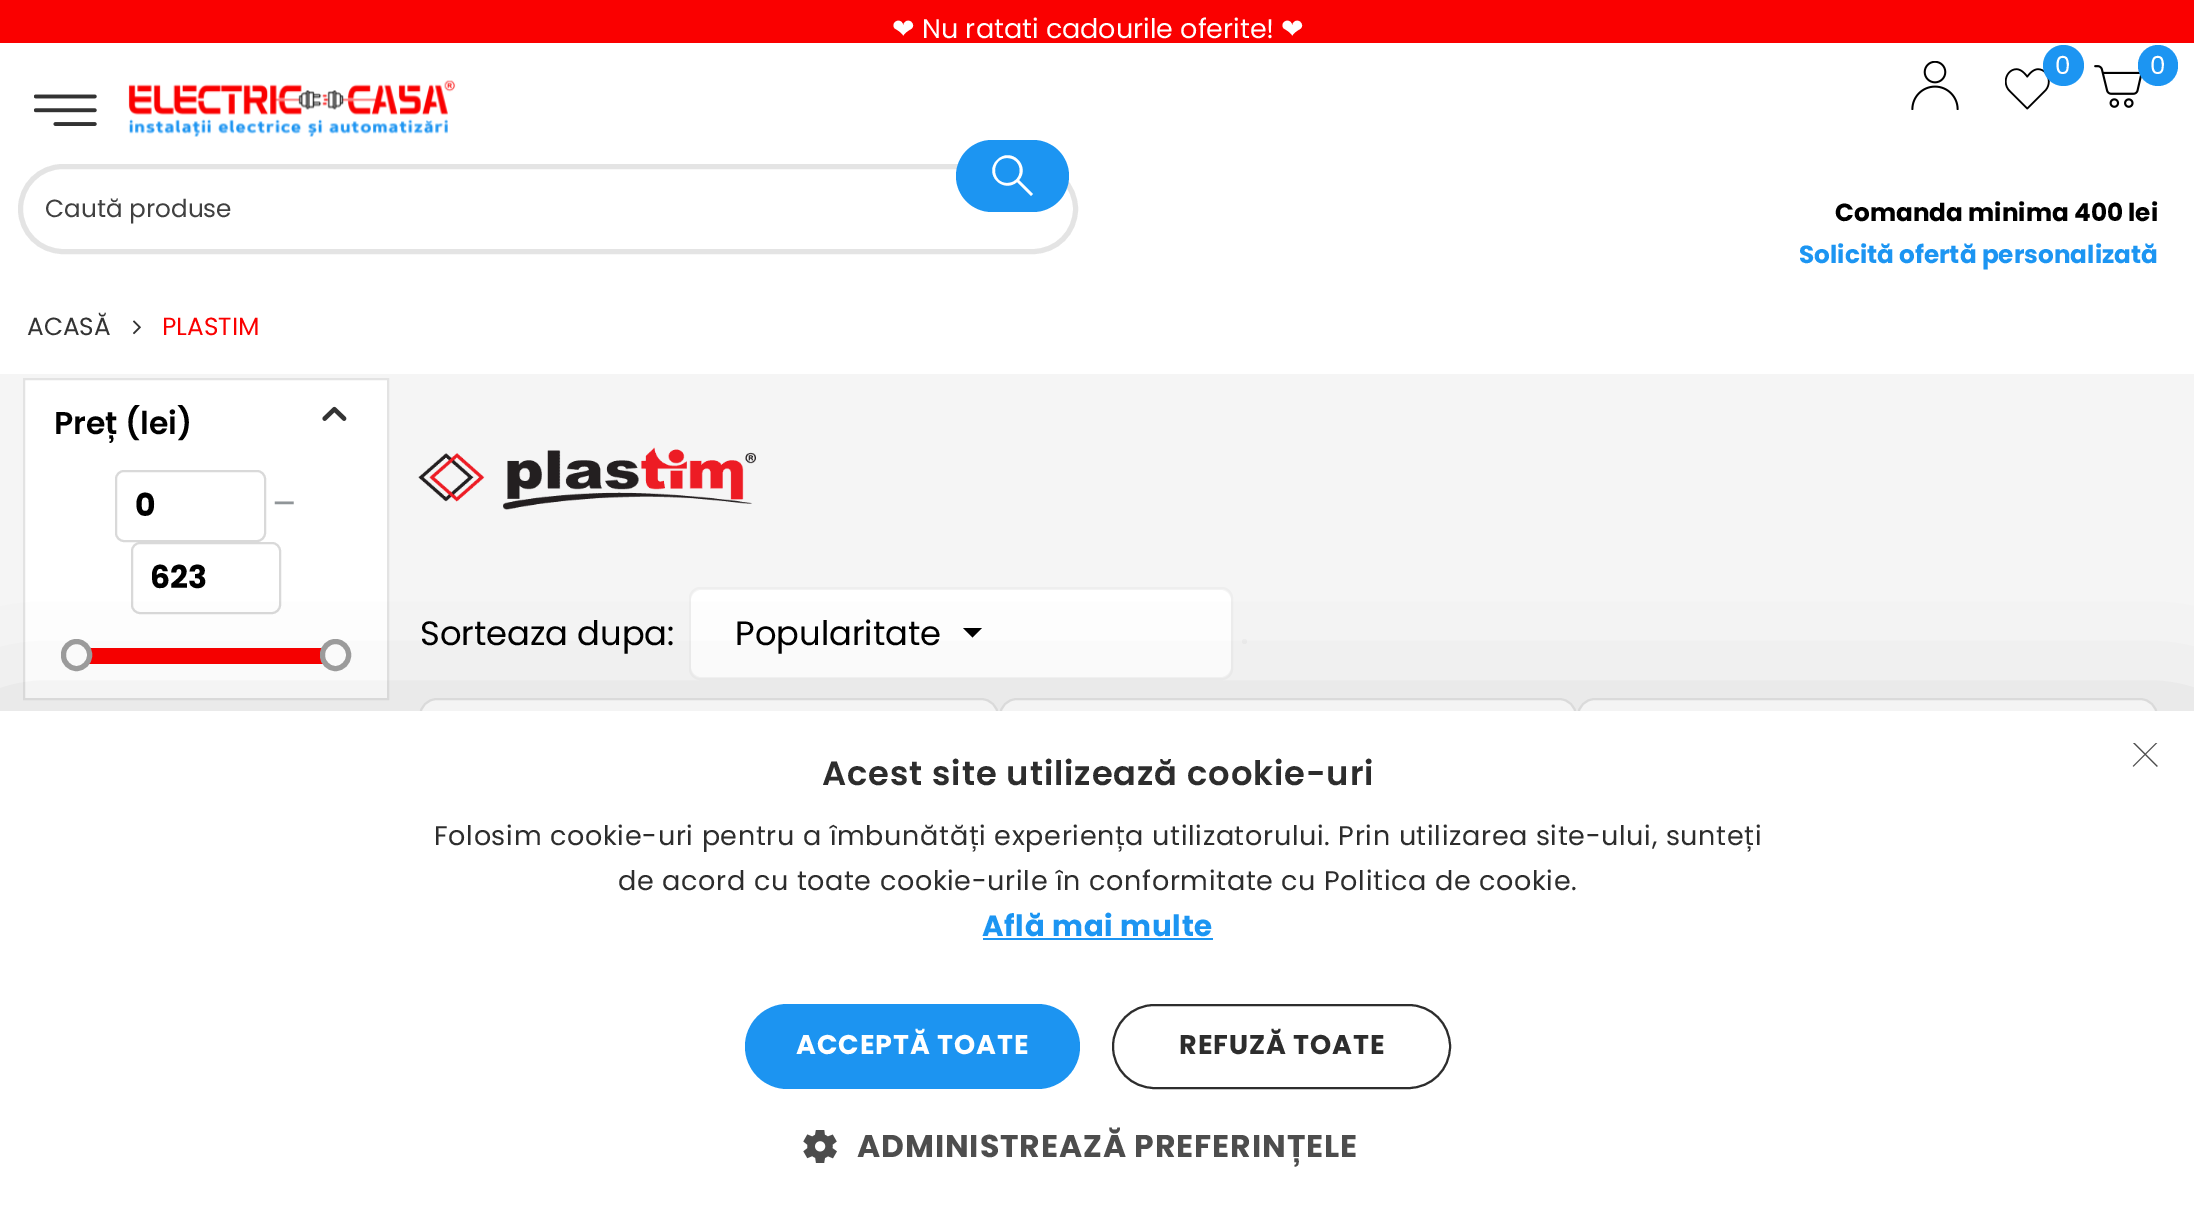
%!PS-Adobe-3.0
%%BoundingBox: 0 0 2194 1222
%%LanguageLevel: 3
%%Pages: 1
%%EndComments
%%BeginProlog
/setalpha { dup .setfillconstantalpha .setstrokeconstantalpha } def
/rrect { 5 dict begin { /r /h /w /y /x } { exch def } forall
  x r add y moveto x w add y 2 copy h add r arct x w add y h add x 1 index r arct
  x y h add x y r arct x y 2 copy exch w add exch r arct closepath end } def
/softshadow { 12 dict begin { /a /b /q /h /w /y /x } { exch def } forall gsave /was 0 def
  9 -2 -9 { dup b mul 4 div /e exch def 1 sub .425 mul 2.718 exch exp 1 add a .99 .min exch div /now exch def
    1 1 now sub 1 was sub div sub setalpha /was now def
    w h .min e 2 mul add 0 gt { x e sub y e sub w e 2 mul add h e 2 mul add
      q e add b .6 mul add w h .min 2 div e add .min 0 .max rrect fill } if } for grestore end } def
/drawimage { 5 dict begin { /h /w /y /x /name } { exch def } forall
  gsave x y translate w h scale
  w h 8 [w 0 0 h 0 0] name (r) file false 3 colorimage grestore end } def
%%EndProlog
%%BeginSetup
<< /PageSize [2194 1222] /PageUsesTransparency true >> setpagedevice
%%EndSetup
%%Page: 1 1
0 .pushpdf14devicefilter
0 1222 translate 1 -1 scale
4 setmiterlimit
1 setgray
0 0 2194 1222 rectfill
0.98 0 0 setrgbcolor
0 0 2194 43 rectfill
(images/1.raw) 34 94 63 32 drawimage
(images/2.raw) 128 80 328 57 drawimage
(images/3.raw) 1911 61 48 49 drawimage
(images/4.raw) 2005 68 45 42 drawimage
0.11 0.584 0.949 setrgbcolor
newpath 2063.5 65.5 20.5 0 360 arc closepath fill
(images/5.raw) 2094 65 48 43 drawimage
2138 45 40 41 20 rrect fill
0.894 setgray
5 setlinewidth
20.5 166.5 1055 85 42.5 rrect stroke
0.11 0.584 0.949 setrgbcolor
956 140 113 72 36 rrect fill
1 setgray
newpath 1033 194 moveto 1019 180 lineto 1031 166 1011 146 997 160 curveto 983 174 1003 194 1017 182 curveto 1031 196 lineto closepath 1007 183 moveto 991 183 991 158 1007 158 curveto 1024 158 1024 183 1007 183 curveto closepath fill
0.961 setgray
0 374 2194 337 rectfill
(images/6.raw) 133 320 8 15 drawimage
1 setgray
newpath 24 379 moveto 388 379 lineto 388 699 lineto 24 699 lineto closepath gsave fill grestore
0.89 setgray
2 setlinewidth
stroke
(images/7.raw) 322 406 25 15 drawimage
0.851 setgray
116 471 149 70 8 rrect stroke
132 543 148 70 8 rrect stroke
0.98 0 0 setrgbcolor
89 648 234 16 rectfill
1 setgray
63.5 641.5 26 27 13 rrect gsave fill grestore
0.62 setgray
5 setlinewidth
stroke
1 setgray
322.5 641.5 26 27 13 rrect gsave fill grestore
0.62 setgray
stroke
(images/8.raw) 418 447 338 63 drawimage
0.933 setgray
2 setlinewidth
690 588 542 91 10 rrect stroke
1 setgray
691 590 540 87 11 rrect fill
0 setgray
newpath 972.5 637.5 moveto 963 628 lineto 982 628 lineto closepath fill
0.933 setgray
newpath 1244.5 641.5 2.5 0 360 arc closepath fill
1 setgray
420 699 578 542 17 rrect gsave fill grestore
0.894 setgray
stroke
1 setgray
1000 699 576 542 17 rrect gsave fill grestore
0.894 setgray
stroke
1 setgray
1578 699 579 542 17 rrect gsave fill grestore
0.894 setgray
stroke
0 setgray
0 779 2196 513 0 79 0.3 softshadow
1 setgray
0 711 2194 511 rectfill
0.11 0.58 0.945 setrgbcolor
983 938 230 2 rectfill
745 1004 335 85 42.5 rrect fill
0.176 setgray
1113 1005 337 83 41.5 rrect stroke
(images/9.raw) 803 1130 34 33 drawimage
/DejaVuSans-Regular [27 0 0 -27 0 0] selectfont
1 setgray
892 38 moveto (❤) show
/Poppins-Regular [27 0 0 -27 0 0] selectfont
922 38 moveto (Nu ratati cadourile oferite!) show
/DejaVuSans-Regular [27 0 0 -27 0 0] selectfont
1281 38 moveto (❤) show
/Poppins-Regular [24.75 0 0 -24.75 0 0] selectfont
2055 74 moveto (0) show
2150 74 moveto (0) show
0.251 setgray
45 217 moveto (Caută produse) show
/Poppins-Bold [24.75 0 0 -24.75 0 0] selectfont
0 setgray
1835 221 moveto (Comanda minima 400 lei) show
0.11 0.584 0.949 setrgbcolor
1799 263 moveto (Solicită ofertă personalizată) show
/Poppins-Regular [24.75 0 0 -24.75 0 0] selectfont
0.2 setgray
27 335 moveto (ACASĂ) show
0.98 0 0 setrgbcolor
162 335 moveto (PLASTIM) show
/Poppins-SemiBold [31.5 0 0 -31.5 0 0] selectfont
0 setgray
54 434 moveto (Preț \(lei\)) show
/Poppins-Bold [31.5 0 0 -31.5 0 0] selectfont
135 516 moveto (0) show
/Poppins-Regular [36 0 0 -36 0 0] selectfont
0.565 0.584 0.596 setrgbcolor
272 516 moveto (–) show
/Poppins-Bold [31.5 0 0 -31.5 0 0] selectfont
0 setgray
150 588 moveto (623) show
/Poppins-Regular [33.75 0 0 -33.75 0 0] selectfont
420 645 moveto (Sorteaza dupa:) show
735 645 moveto (Popularitate) show
gsave
2129 743 33 33 rectclip
/Poppins-Thin [65 0 0 -65 0 0] selectfont
0.302 setgray
2130 779 moveto (×) show
grestore
/Poppins-SemiBold [33.75 0 0 -33.75 0 0] selectfont
0.176 setgray
822 785 moveto 0.9 0 (Acest site utilizează cookie-uri) ashow
/Poppins-Regular [27 0 0 -27 0 0] selectfont
434 845 moveto 0.67 0 (Folosim cookie-uri pentru a îmbunătăți experiența utilizatorului. Prin utilizarea site-ului, sunteți) ashow
618 890 moveto 0.67 0 (de acord cu toate cookie-urile în conformitate cu Politica de cookie.) ashow
/Poppins-Bold [29.25 0 0 -29.25 0 0] selectfont
0.11 0.584 0.949 setrgbcolor
982 936 moveto 0.67 0 (Află mai multe) ashow
/Poppins-Bold [27 0 0 -27 0 0] selectfont
1 setgray
796 1054 moveto 0.9 0 (ACCEPTĂ TOATE) ashow
0.176 setgray
1179 1054 moveto 0.9 0 (REFUZĂ TOATE) ashow
/Poppins-Bold [31.5 0 0 -31.5 0 0] selectfont
0.302 setgray
857 1157 moveto 0.9 0 (ADMINISTREAZĂ PREFERINȚELE) ashow
.poppdf14devicefilter showpage
%%EOF
